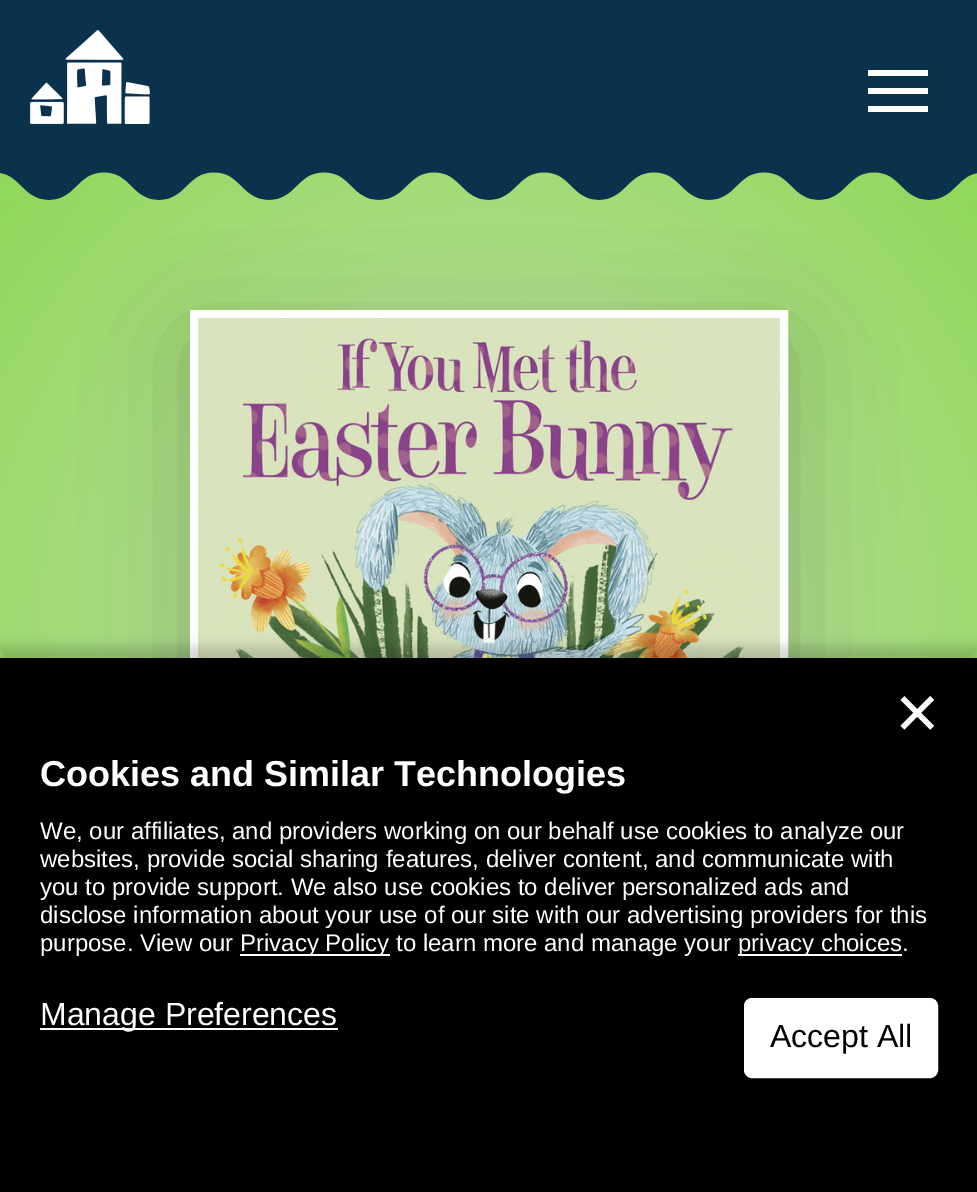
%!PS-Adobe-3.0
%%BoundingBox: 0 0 977 1192
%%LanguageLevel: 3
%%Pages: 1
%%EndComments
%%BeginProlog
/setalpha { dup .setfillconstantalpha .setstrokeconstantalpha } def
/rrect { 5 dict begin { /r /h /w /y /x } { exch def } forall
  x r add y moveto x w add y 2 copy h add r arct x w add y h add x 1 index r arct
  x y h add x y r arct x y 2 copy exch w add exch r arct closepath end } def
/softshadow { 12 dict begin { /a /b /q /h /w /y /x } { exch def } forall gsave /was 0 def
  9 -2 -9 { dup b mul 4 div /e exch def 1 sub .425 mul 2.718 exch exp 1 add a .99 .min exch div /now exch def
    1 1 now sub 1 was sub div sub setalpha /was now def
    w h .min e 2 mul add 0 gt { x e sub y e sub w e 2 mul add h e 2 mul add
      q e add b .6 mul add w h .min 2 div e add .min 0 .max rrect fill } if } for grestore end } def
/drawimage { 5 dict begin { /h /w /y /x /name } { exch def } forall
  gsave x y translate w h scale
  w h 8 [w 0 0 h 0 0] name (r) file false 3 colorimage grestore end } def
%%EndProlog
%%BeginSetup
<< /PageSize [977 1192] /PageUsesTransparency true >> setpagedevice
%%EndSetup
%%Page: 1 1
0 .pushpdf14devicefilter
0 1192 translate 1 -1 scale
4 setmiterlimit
1 setgray
0 0 977 1192 rectfill
0.039 0.196 0.302 setrgbcolor
0 0 977 170 rectfill
(images/1.raw) 30 30 120 94 drawimage
1 setgray
868 88 60 6 rectfill
868 70 60 6 rectfill
868 106 60 6 rectfill
gsave newpath 0 172 moveto 977 172 lineto 977 658 lineto 0 658 lineto closepath clip newpath 489 629 translate 692 706 scale
<< /ShadingType 3 /ColorSpace /DeviceRGB /Coords [0 0 0 0 0 1] /Extend [true true] /Function << /FunctionType 3 /Domain [0 1] /Functions [<< /FunctionType 2 /Domain [0 1] /C0 [0.71 0.871 0.588] /C1 [0.71 0.871 0.588] /N 1 >> << /FunctionType 2 /Domain [0 1] /C0 [0.71 0.871 0.588] /C1 [0.557 0.843 0.337] /N 1 >>] /Bounds [0.3] /Encode [0 1 0 1] >> >> shfill grestore
0 setgray
190 340 598 598 0 50 0.2 softshadow
(images/2.raw) 0 170 977 30 drawimage
1 setgray
8 setlinewidth
194 314 590 590 rectstroke
(images/3.raw) 198 318 582 340 drawimage
0 setgray
0 646 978 534 0 6 0.16 softshadow
0 658 977 534 rectfill
1 setgray
240 954 150 2 rectfill
738 954 164 2 rectfill
40 1028 298 2 rectfill
746 1000 190 76 6 rrect gsave fill grestore
4 setlinewidth
stroke
/DejaVuSans-Regular [58 0 0 -58 0 0] selectfont
893 734 moveto (✕) show
/LiberationSans-Bold [36 0 0 -36 0 0] selectfont
40 786 moveto (Cookies and Similar Technologies) show
/LiberationSans-Regular [24 0 0 -24 0 0] selectfont
40 839 moveto (We, our affiliates, and providers working on our behalf use cookies to analyze our) show
40 867 moveto (websites, provide social sharing features, deliver content, and communicate with) show
40 895 moveto (you to provide support. We also use cookies to deliver personalized ads and) show
40 923 moveto (disclose information about your use of our site with our advertising providers for this) show
40 951 moveto (purpose. View our) show
240 951 moveto (Privacy Policy to learn more and manage your) show
738 951 moveto (privacy choices.) show
/LiberationSans-Regular [32 0 0 -32 0 0] selectfont
40 1025 moveto (Manage Preferences) show
0 setgray
770 1047 moveto (Accept All) show
.poppdf14devicefilter showpage
%%EOF
